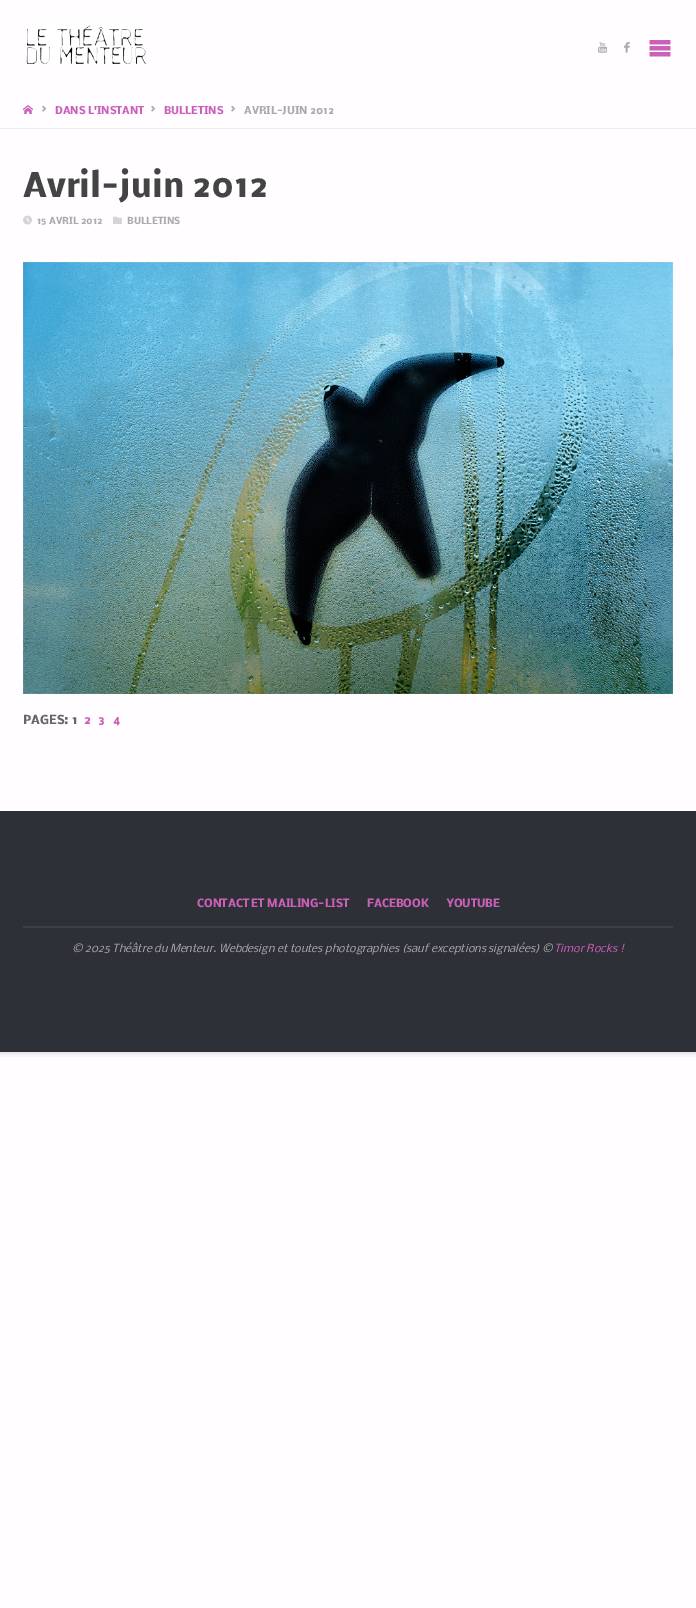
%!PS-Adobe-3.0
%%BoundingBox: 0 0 696 1608
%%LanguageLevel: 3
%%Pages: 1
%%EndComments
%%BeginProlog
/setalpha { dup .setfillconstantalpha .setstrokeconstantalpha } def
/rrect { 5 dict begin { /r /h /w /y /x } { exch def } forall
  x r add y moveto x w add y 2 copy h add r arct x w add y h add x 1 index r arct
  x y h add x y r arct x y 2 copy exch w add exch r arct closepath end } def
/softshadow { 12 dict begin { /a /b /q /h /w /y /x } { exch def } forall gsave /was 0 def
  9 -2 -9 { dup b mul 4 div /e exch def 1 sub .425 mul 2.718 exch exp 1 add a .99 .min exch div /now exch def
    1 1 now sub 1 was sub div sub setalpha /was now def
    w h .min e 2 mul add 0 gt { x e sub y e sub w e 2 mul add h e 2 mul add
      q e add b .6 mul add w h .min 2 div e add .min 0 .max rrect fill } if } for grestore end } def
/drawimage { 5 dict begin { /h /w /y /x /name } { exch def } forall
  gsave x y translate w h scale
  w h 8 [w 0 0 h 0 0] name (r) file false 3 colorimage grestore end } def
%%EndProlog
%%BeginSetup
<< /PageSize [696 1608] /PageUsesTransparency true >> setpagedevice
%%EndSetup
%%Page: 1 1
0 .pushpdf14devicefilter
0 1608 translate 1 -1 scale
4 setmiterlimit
1 0.992 1 setrgbcolor
0 0 696 1608 rectfill
gsave
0 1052 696 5 rectclip
0 setgray
0 0 696 1052 0 4 0.2 softshadow
grestore
(images/1.raw) 26 25 120 40 drawimage
(images/2.raw) 598 41 10 12 drawimage
(images/3.raw) 624 42 6 11 drawimage
(images/4.raw) 649 40 22 17 drawimage
0.933 0.925 0.933 setrgbcolor
0 128 696 1 rectfill
(images/5.raw) 23 105 10 9 drawimage
(images/6.raw) 42 105 5 7 drawimage
(images/6.raw) 151 105 5 7 drawimage
(images/6.raw) 231 105 5 7 drawimage
(images/7.raw) 23 215 9 10 drawimage
(images/8.raw) 113 216 9 8 drawimage
(images/9.raw) 23 262 650 432 drawimage
0.18 0.188 0.22 setrgbcolor
0 811 696 241 rectfill
0.239 0.247 0.278 setrgbcolor
23 926 650 2 rectfill
/Nobile-Bold [10 0 0 -10 0 0] selectfont
0.8 0.373 0.722 setrgbcolor
55 114 moveto (DANS L'INSTANT) show
164 114 moveto (BULLETINS) show
0.671 setgray
244 114 moveto (AVRIL-JUIN 2012) show
/Nobile-Bold [31.5 0 0 -31.5 0 0] selectfont
0.267 setgray
23 197 moveto (Avril-juin 2012) show
/Nobile-Bold [9 0 0 -9 0 0] selectfont
0.671 setgray
37 224 moveto (15 AVRIL 2012) show
127 224 moveto (BULLETINS) show
/Nobile-Bold [11.5 0 0 -11.5 0 0] selectfont
0.4 setgray
23 724 moveto (PAGES: 1) show
0.8 0.373 0.722 setrgbcolor
84 724 moveto (2) show
98 724 moveto (3) show
113 724 moveto (4) show
/Nobile-Bold [10.55 0 0 -10.55 0 0] selectfont
197 907 moveto (CONTACT ET MAILING-LIST) show
367 907 moveto (FACEBOOK) show
447 907 moveto (YOUTUBE) show
/Nobile-Italic [10.55 0 0 -10.55 0 0] selectfont
0.671 setgray
72 952 moveto (© 2025 Théâtre du Menteur. Webdesign et toutes photographies \(sauf exceptions signalées\) ©) show
0.8 0.373 0.722 setrgbcolor
554 952 moveto (Timor Rocks !) show
.poppdf14devicefilter showpage
%%EOF
